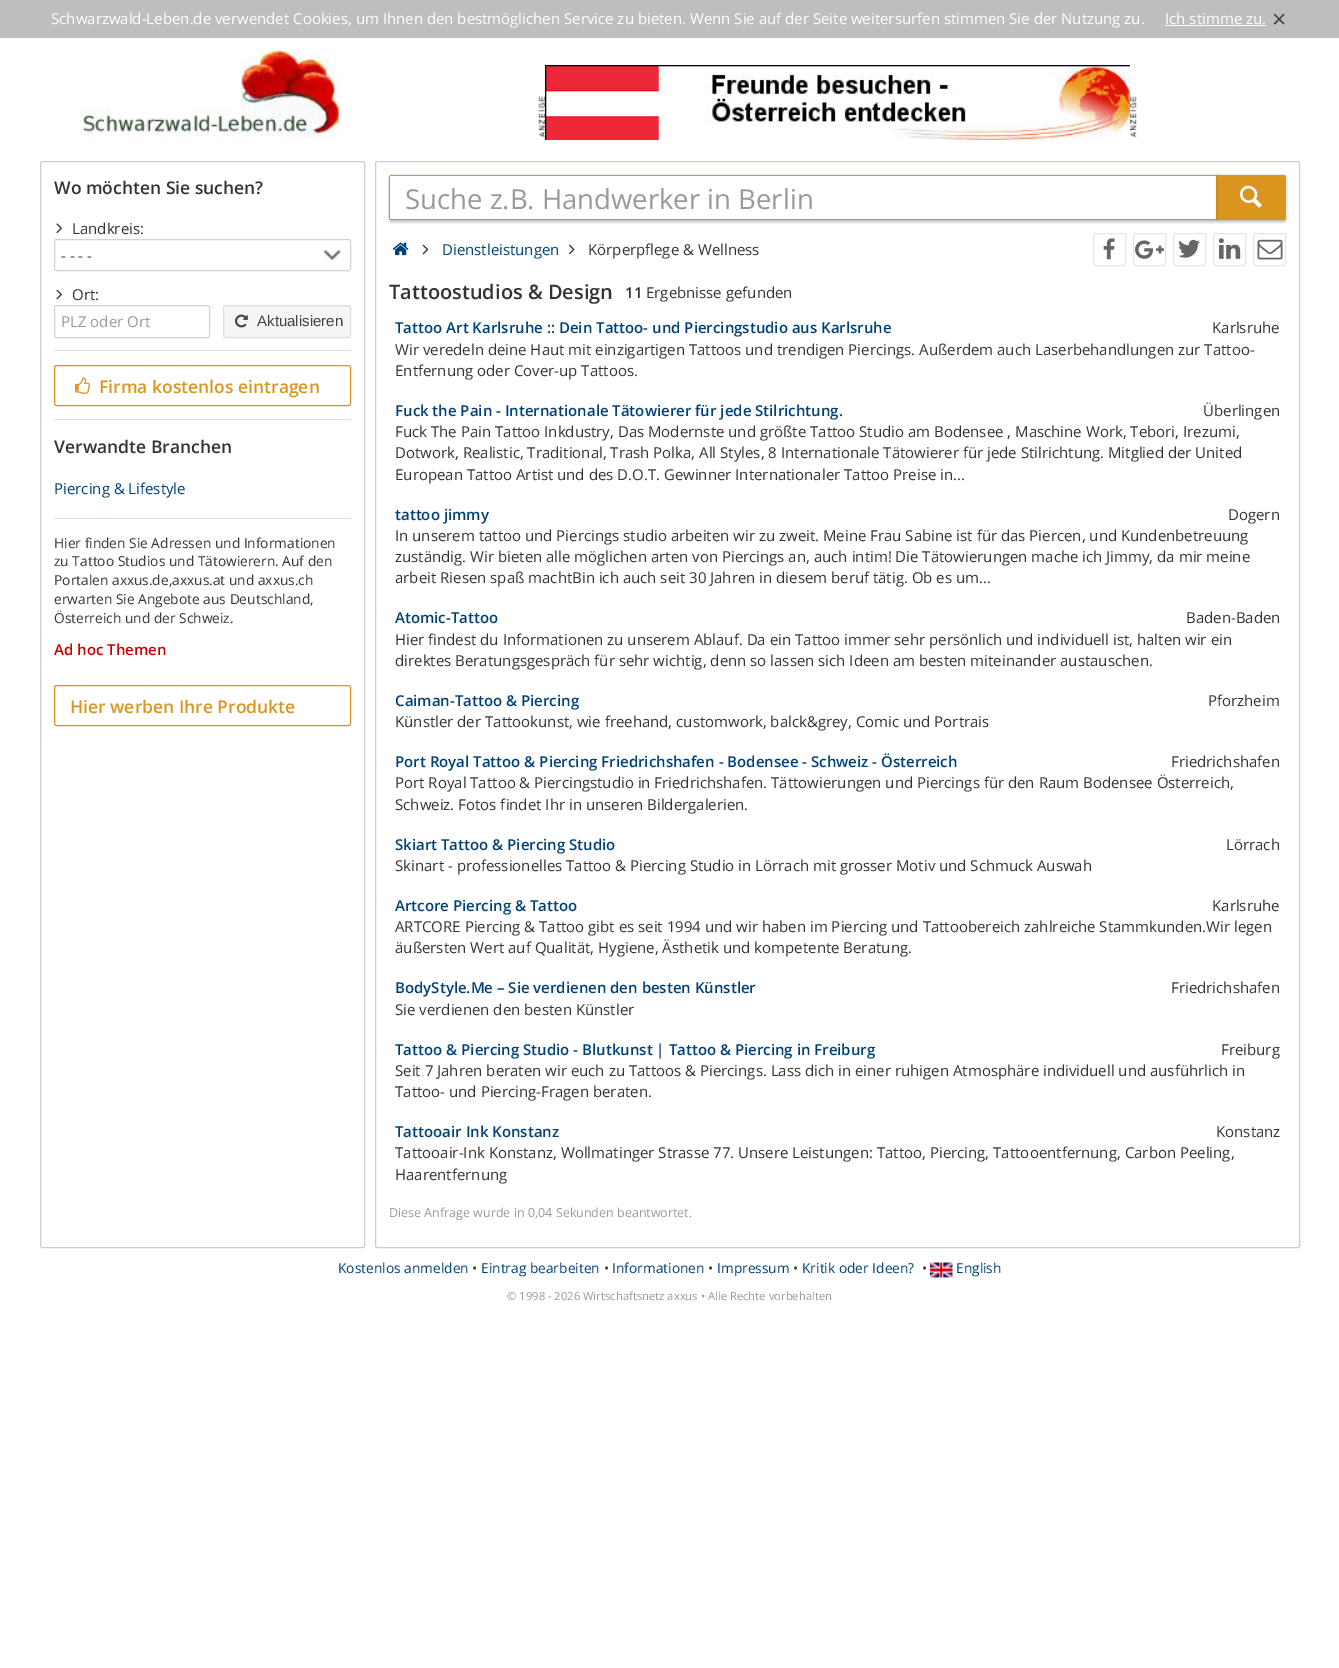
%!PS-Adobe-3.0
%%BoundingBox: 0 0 1339 1668
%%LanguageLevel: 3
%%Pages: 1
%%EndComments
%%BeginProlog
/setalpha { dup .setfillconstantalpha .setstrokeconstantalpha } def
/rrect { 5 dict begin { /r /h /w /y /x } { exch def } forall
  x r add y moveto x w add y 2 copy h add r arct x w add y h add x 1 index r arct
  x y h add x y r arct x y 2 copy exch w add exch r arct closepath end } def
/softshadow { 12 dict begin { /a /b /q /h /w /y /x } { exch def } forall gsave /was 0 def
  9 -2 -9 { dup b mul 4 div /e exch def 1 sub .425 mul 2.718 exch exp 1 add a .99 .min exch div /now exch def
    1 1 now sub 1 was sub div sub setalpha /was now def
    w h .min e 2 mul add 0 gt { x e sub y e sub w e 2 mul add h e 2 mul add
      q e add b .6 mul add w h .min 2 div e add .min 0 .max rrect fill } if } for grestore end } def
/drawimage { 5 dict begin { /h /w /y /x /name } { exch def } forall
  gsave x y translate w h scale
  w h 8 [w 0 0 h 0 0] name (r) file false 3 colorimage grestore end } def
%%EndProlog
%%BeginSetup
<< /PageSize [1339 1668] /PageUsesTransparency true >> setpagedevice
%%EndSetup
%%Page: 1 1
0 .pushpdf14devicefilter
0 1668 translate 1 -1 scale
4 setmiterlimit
1 setgray
0 0 1339 1668 rectfill
0.745 setgray
0 0 1339 38 rectfill
1 setgray
1165 25 101 1 rectfill
(images/1.raw) 80 47 260 91 drawimage
(images/2.raw) 538 96 7 42 drawimage
(images/3.raw) 545 65 585 75 drawimage
(images/4.raw) 1130 96 7 42 drawimage
0.8 setgray
40.5 161.5 324 1086 2 rrect stroke
(images/5.raw) 56 223 6 11 drawimage
(images/6.raw) 323 250 19 10 drawimage
0.827 setgray
54.5 239.5 296 31 2 rrect stroke
(images/7.raw) 56 289 6 11 drawimage
54.5 305.5 155 32 2 rrect stroke
0.961 setgray
223 305 128 33 2.5 rrect fill
0.1 setalpha
0 setgray
223.5 305.5 127 32 2 rrect stroke
1 setalpha
(images/8.raw) 235 314 13 14 drawimage
0.867 setgray
54 350 297 1 rectfill
0.851 0.584 0.114 setrgbcolor
54.5 365.5 296 40 2 rrect stroke
(images/9.raw) 75 377 15 17 drawimage
0.867 setgray
54 419 297 1 rectfill
54 518 297 1 rectfill
0.851 0.584 0.114 setrgbcolor
54.5 685.5 296 40 2 rrect stroke
0.8 setgray
375.5 161.5 924 1086 2 rrect stroke
0.922 setgray
newpath 1215.5 174.5 moveto 1284 174.5 lineto 1286 174.5 1287.5 176 1287.5 178 curveto 1287.5 217 lineto 1287.5 219 1286 220.5 1284 220.5 curveto 1215.5 220.5 lineto closepath stroke
0 setgray
1216 178 70 45 2.5 1 0.16 softshadow
0.851 0.584 0.114 setrgbcolor
newpath 1216 176 moveto 1284 176 lineto 1284.5 176 1285 176.5 1285 177 curveto 1285 218 lineto 1285 218.5 1284.5 219 1284 219 curveto 1216 219 lineto closepath fill
1216 175 69 1 rectfill
1216 219 69 1 rectfill
0.08 setalpha
0 setgray
newpath 392 174.5 moveto 1217.5 174.5 lineto 1217.5 220.5 lineto 392 220.5 lineto 390 220.5 388.5 219 388.5 217 curveto 388.5 178 lineto 388.5 176 390 174.5 392 174.5 curveto closepath stroke
1 setalpha
389 178 827 45 2.5 1 0.16 softshadow
1 setgray
newpath 391 176 moveto 1216 176 lineto 1216 219 lineto 391 219 lineto 390.5 219 390 218.5 390 218 curveto 390 177 lineto 390 176.5 390.5 176 391 176 curveto closepath fill
0.851 0.584 0.114 setrgbcolor
390 175 826 1 rectfill
390 219 826 1 rectfill
389 176 1 43 rectfill
1285 176 1 43 rectfill
(images/10.raw) 1240 185 22 23 drawimage
(images/11.raw) 392 242 17 14 drawimage
(images/12.raw) 422 244 7 11 drawimage
(images/13.raw) 568 244 7 11 drawimage
0.902 setgray
1093.5 233.5 32 32 2 rrect stroke
(images/14.raw) 1103 238 12 22 drawimage
1133.5 233.5 32 32 2 rrect stroke
(images/15.raw) 1135 240 29 19 drawimage
1173.5 233.5 32 32 2 rrect stroke
(images/16.raw) 1178 239 22 19 drawimage
1213.5 233.5 32 32 2 rrect stroke
(images/17.raw) 1218 238 23 21 drawimage
1253.5 233.5 32 32 2 rrect stroke
(images/18.raw) 1257 239 26 21 drawimage
(images/19.raw) 930 1262 23 16 drawimage
/OpenSans-Regular [15 0 0 -15 0 0] selectfont
1 setgray
51 24 moveto (Schwarzwald-Leben.de verwendet Cookies, um Ihnen den bestmöglichen Service zu bieten. Wenn Sie auf der Seite weitersurfen stimmen Sie der Nutzung zu.) show
1165 24 moveto (Ich stimme zu.) show
/OpenSans-Regular [25 0 0 -25 0 0] selectfont
0.251 setgray
1272 28 moveto (×) show
/OpenSans-SemiBold [17.5 0 0 -17.5 0 0] selectfont
0.2 setgray
54 194 moveto (Wo möchten Sie suchen?) show
/OpenSans-Regular [15 0 0 -15 0 0] selectfont
72 234 moveto (Landkreis:) show
0.125 0.267 0.459 setrgbcolor
61 261 moveto (- - - -) show
0.2 setgray
72 300 moveto (Ort:) show
0.6 setgray
61 327 moveto (PLZ oder Ort) show
/LiberationSans-Regular [15 0 0 -15 0 0] selectfont
0.251 setgray
257 326 moveto (Aktualisieren) show
/OpenSans-SemiBold [17.5 0 0 -17.5 0 0] selectfont
0.851 0.584 0.114 setrgbcolor
99 393 moveto (Firma kostenlos eintragen) show
0.2 setgray
54 453 moveto (Verwandte Branchen) show
/OpenSans-Regular [15 0 0 -15 0 0] selectfont
0 0.251 0.471 setrgbcolor
54 494 moveto (Piercing & Lifestyle) show
/OpenSans-Regular [13.75 0 0 -13.75 0 0] selectfont
0.2 setgray
54 548 moveto (Hier finden Sie Adressen und Informationen) show
54 566 moveto (zu Tattoo Studios und Tätowierern. Auf den) show
54 585 moveto (Portalen axxus.de,axxus.at und axxus.ch) show
54 604 moveto (erwarten Sie Angebote aus Deutschland,) show
54 623 moveto (Österreich und der Schweiz.) show
/OpenSans-SemiBold [15 0 0 -15 0 0] selectfont
0.8 0 0 setrgbcolor
54 655 moveto (Ad hoc Themen) show
/OpenSans-SemiBold [17.5 0 0 -17.5 0 0] selectfont
0.851 0.584 0.114 setrgbcolor
70 713 moveto (Hier werben Ihre Produkte) show
/OpenSans-Regular [27.5 0 0 -27.5 0 0] selectfont
0.6 setgray
405 209 moveto (Suche z.B. Handwerker in Berlin) show
/OpenSans-Regular [15 0 0 -15 0 0] selectfont
0 0.251 0.471 setrgbcolor
442 255 moveto (Dienstleistungen) show
0.2 setgray
588 255 moveto (Körperpflege & Wellness) show
/OpenSans-SemiBold [20 0 0 -20 0 0] selectfont
389 299 moveto (Tattoostudios & Design) show
/OpenSans-SemiBold [15 0 0 -15 0 0] selectfont
625 298 moveto (11) show
/OpenSans-Regular [15 0 0 -15 0 0] selectfont
646 298 moveto (Ergebnisse gefunden) show
/OpenSans-SemiBold [15 0 0 -15 0 0] selectfont
0 0.251 0.471 setrgbcolor
395 333 moveto (Tattoo Art Karlsruhe :: Dein Tattoo- und Piercingstudio aus Karlsruhe) show
/OpenSans-Regular [15 0 0 -15 0 0] selectfont
0.2 setgray
1212 333 moveto (Karlsruhe) show
395 355 moveto (Wir veredeln deine Haut mit einzigartigen Tattoos und trendigen Piercings. Außerdem auch Laserbehandlungen zur Tattoo-) show
395 376 moveto (Entfernung oder Cover-up Tattoos.) show
/OpenSans-SemiBold [15 0 0 -15 0 0] selectfont
0 0.251 0.471 setrgbcolor
395 416 moveto (Fuck the Pain - Internationale Tätowierer für jede Stilrichtung.) show
/OpenSans-Regular [15 0 0 -15 0 0] selectfont
0.2 setgray
1203 416 moveto (Überlingen) show
395 437 moveto (Fuck The Pain Tattoo Inkdustry, Das Modernste und größte Tattoo Studio am Bodensee , Maschine Work, Tebori, Irezumi,) show
395 458 moveto (Dotwork, Realistic, Traditional, Trash Polka, All Styles, 8 Internationale Tätowierer für jede Stilrichtung. Mitglied der United) show
395 480 moveto (European Tattoo Artist und des D.O.T. Gewinner Internationaler Tattoo Preise in...) show
/OpenSans-SemiBold [15 0 0 -15 0 0] selectfont
0 0.251 0.471 setrgbcolor
395 520 moveto (tattoo jimmy) show
/OpenSans-Regular [15 0 0 -15 0 0] selectfont
0.2 setgray
1228 520 moveto (Dogern) show
395 541 moveto (In unserem tattoo und Piercings studio arbeiten wir zu zweit. Meine Frau Sabine ist für das Piercen, und Kundenbetreuung) show
395 562 moveto (zuständig. Wir bieten alle möglichen arten von Piercings an, auch intim! Die Tätowierungen mache ich Jimmy, da mir meine) show
395 583 moveto (arbeit Riesen spaß machtBin ich auch seit 30 Jahren in diesem beruf tätig. Ob es um...) show
/OpenSans-SemiBold [15 0 0 -15 0 0] selectfont
0 0.251 0.471 setrgbcolor
395 623 moveto (Atomic-Tattoo) show
/OpenSans-Regular [15 0 0 -15 0 0] selectfont
0.2 setgray
1186 623 moveto (Baden-Baden) show
395 645 moveto (Hier findest du Informationen zu unserem Ablauf. Da ein Tattoo immer sehr persönlich und individuell ist, halten wir ein) show
395 666 moveto (direktes Beratungsgespräch für sehr wichtig, denn so lassen sich Ideen am besten miteinander austauschen.) show
/OpenSans-SemiBold [15 0 0 -15 0 0] selectfont
0 0.251 0.471 setrgbcolor
395 706 moveto (Caiman-Tattoo & Piercing) show
/OpenSans-Regular [15 0 0 -15 0 0] selectfont
0.2 setgray
1208 706 moveto (Pforzheim) show
395 727 moveto (Künstler der Tattookunst, wie freehand, customwork, balck&grey, Comic und Portrais) show
/OpenSans-SemiBold [15 0 0 -15 0 0] selectfont
0 0.251 0.471 setrgbcolor
395 767 moveto (Port Royal Tattoo & Piercing Friedrichshafen - Bodensee - Schweiz - Österreich) show
/OpenSans-Regular [15 0 0 -15 0 0] selectfont
0.2 setgray
1171 767 moveto (Friedrichshafen) show
395 788 moveto (Port Royal Tattoo & Piercingstudio in Friedrichshafen. Tättowierungen und Piercings für den Raum Bodensee Österreich,) show
395 810 moveto (Schweiz. Fotos findet Ihr in unseren Bildergalerien.) show
/OpenSans-SemiBold [15 0 0 -15 0 0] selectfont
0 0.251 0.471 setrgbcolor
395 850 moveto (Skiart Tattoo & Piercing Studio) show
/OpenSans-Regular [15 0 0 -15 0 0] selectfont
0.2 setgray
1226 850 moveto (Lörrach) show
395 871 moveto (Skinart - professionelles Tattoo & Piercing Studio in Lörrach mit grosser Motiv und Schmuck Auswah) show
/OpenSans-SemiBold [15 0 0 -15 0 0] selectfont
0 0.251 0.471 setrgbcolor
395 911 moveto (Artcore Piercing & Tattoo) show
/OpenSans-Regular [15 0 0 -15 0 0] selectfont
0.2 setgray
1212 911 moveto (Karlsruhe) show
395 932 moveto (ARTCORE Piercing & Tattoo gibt es seit 1994 und wir haben im Piercing und Tattoobereich zahlreiche Stammkunden.Wir legen) show
395 953 moveto (äußersten Wert auf Qualität, Hygiene, Ästhetik und kompetente Beratung.) show
/OpenSans-SemiBold [15 0 0 -15 0 0] selectfont
0 0.251 0.471 setrgbcolor
395 993 moveto (BodyStyle.Me – Sie verdienen den besten Künstler) show
/OpenSans-Regular [15 0 0 -15 0 0] selectfont
0.2 setgray
1171 993 moveto (Friedrichshafen) show
395 1015 moveto (Sie verdienen den besten Künstler) show
/OpenSans-SemiBold [15 0 0 -15 0 0] selectfont
0 0.251 0.471 setrgbcolor
395 1055 moveto (Tattoo & Piercing Studio - Blutkunst | Tattoo & Piercing in Freiburg) show
/OpenSans-Regular [15 0 0 -15 0 0] selectfont
0.2 setgray
1221 1055 moveto (Freiburg) show
395 1076 moveto (Seit 7 Jahren beraten wir euch zu Tattoos & Piercings. Lass dich in einer ruhigen Atmosphäre individuell und ausführlich in) show
395 1097 moveto (Tattoo- und Piercing-Fragen beraten.) show
/OpenSans-SemiBold [15 0 0 -15 0 0] selectfont
0 0.251 0.471 setrgbcolor
395 1137 moveto (Tattooair Ink Konstanz) show
/OpenSans-Regular [15 0 0 -15 0 0] selectfont
0.2 setgray
1216 1137 moveto (Konstanz) show
395 1158 moveto (Tattooair-Ink Konstanz, Wollmatinger Strasse 77. Unsere Leistungen: Tattoo, Piercing, Tattooentfernung, Carbon Peeling,) show
395 1180 moveto (Haarentfernung) show
/OpenSans-Regular [12.5 0 0 -12.5 0 0] selectfont
0.6 setgray
389 1217 moveto (Diese Anfrage wurde in 0,04 Sekunden beantwortet.) show
/OpenSans-Regular [13.75 0 0 -13.75 0 0] selectfont
0 0.251 0.471 setrgbcolor
338 1273 moveto (Kostenlos anmelden) show
0.2 setgray
472 1273 moveto (•) show
0 0.251 0.471 setrgbcolor
481 1273 moveto (Eintrag bearbeiten) show
0.2 setgray
604 1273 moveto (•) show
0 0.251 0.471 setrgbcolor
612 1273 moveto (Informationen) show
0.2 setgray
708 1273 moveto (•) show
0 0.251 0.471 setrgbcolor
717 1273 moveto (Impressum) show
0.2 setgray
793 1273 moveto (•) show
0 0.251 0.471 setrgbcolor
802 1273 moveto (Kritik oder Ideen?) show
0.2 setgray
922 1273 moveto (•) show
0 0.251 0.471 setrgbcolor
956 1273 moveto (English) show
/OpenSans-Regular [11.25 0 0 -11.25 0 0] selectfont
0.6 setgray
507 1300 moveto (© 1998 - 2026 Wirtschaftsnetz axxus • Alle Rechte vorbehalten) show
.poppdf14devicefilter showpage
%%EOF
